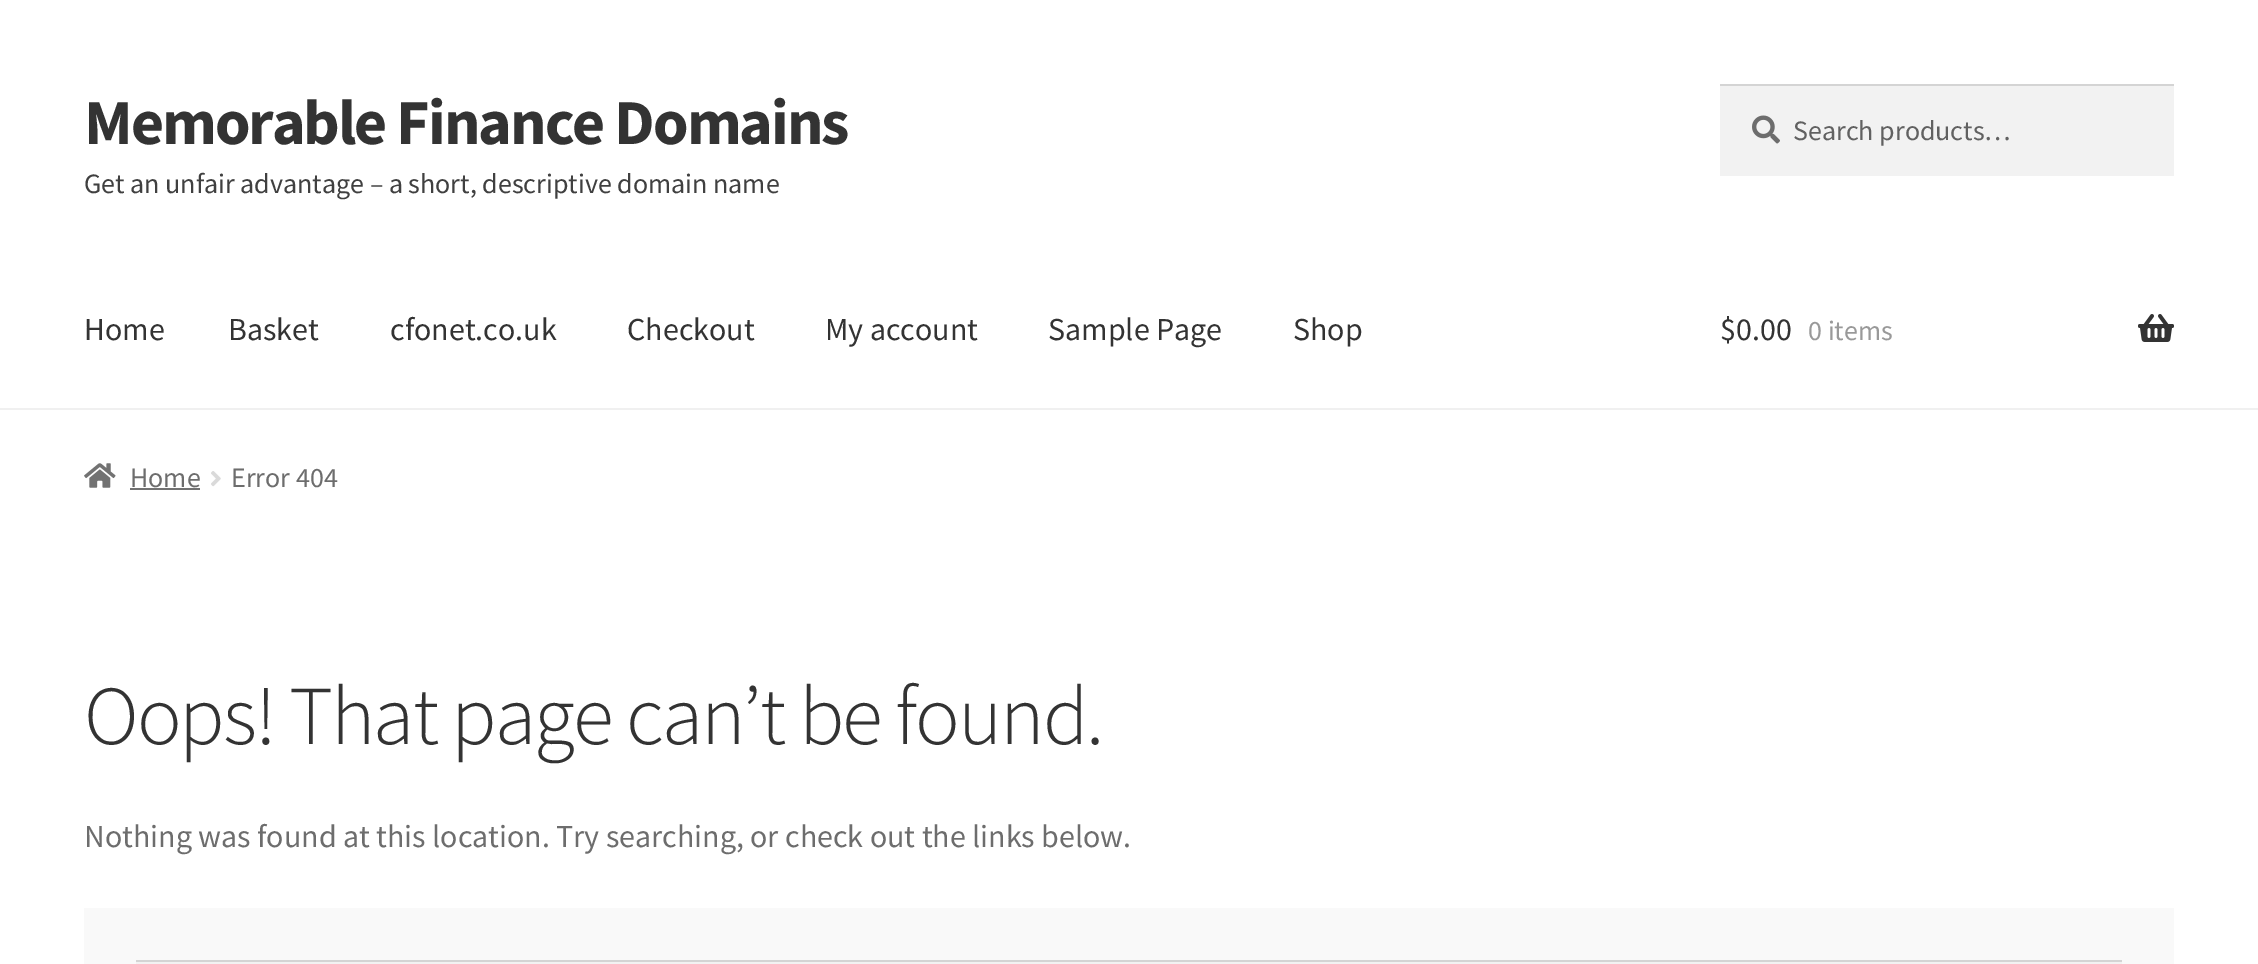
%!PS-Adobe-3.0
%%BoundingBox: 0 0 2258 964
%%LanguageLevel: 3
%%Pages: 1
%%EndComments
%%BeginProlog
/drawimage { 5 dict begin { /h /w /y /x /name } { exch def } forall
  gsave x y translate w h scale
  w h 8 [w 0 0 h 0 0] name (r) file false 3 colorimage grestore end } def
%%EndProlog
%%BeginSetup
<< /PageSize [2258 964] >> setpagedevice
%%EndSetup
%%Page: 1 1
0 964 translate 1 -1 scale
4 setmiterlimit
1 setgray
0 0 2258 964 rectfill
0.941 setgray
0 408 2258 2 rectfill
0.949 setgray
1720 86 454 90 rectfill
(images/1.raw) 1752 115 28 29 drawimage
0.831 setgray
1720 84 454 2 rectfill
(images/2.raw) 2138 314 36 28 drawimage
(images/3.raw) 84 463 32 25 drawimage
0.447 setgray
130 488 70 2 rectfill
(images/4.raw) 211 471 10 16 drawimage
0.976 setgray
84 908 2090 56 rectfill
0.949 setgray
136 962 1986 2 rectfill
0.831 setgray
136 960 1986 2 rectfill
/SourceSansPro-Bold [64 0 0 -64 0 0] selectfont
0.2 setgray
84 144 moveto -2 0 (Memorable Finance Domains) ashow
/SourceSansPro-Regular [28 0 0 -28 0 0] selectfont
0.251 setgray
84 193 moveto (Get an unfair advantage – a short, descriptive domain name) show
0.38 setgray
1793 140 moveto (Search products…) show
/SourceSansPro-Regular [32 0 0 -32 0 0] selectfont
0.2 setgray
84 340 moveto (Home) show
228 340 moveto (Basket) show
390 340 moveto (cfonet.co.uk) show
627 340 moveto (Checkout) show
825 340 moveto (My account) show
1048 340 moveto (Sample Page) show
1293 340 moveto (Shop) show
1720 340 moveto ($0.00) show
/SourceSansPro-Regular [28 0 0 -28 0 0] selectfont
0.6 setgray
1808 340 moveto (0 items) show
0.427 setgray
130 487 moveto (Home) show
231 487 moveto (Error 404) show
/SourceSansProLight-Light [83.75 0 0 -83.75 0 0] selectfont
0.2 setgray
84 744 moveto -2 0 (Oops! That page can’t be found.) ashow
/SourceSansPro-Regular [32 0 0 -32 0 0] selectfont
0.427 setgray
84 847 moveto (Nothing was found at this location. Try searching, or check out the links below.) show
showpage
%%EOF
